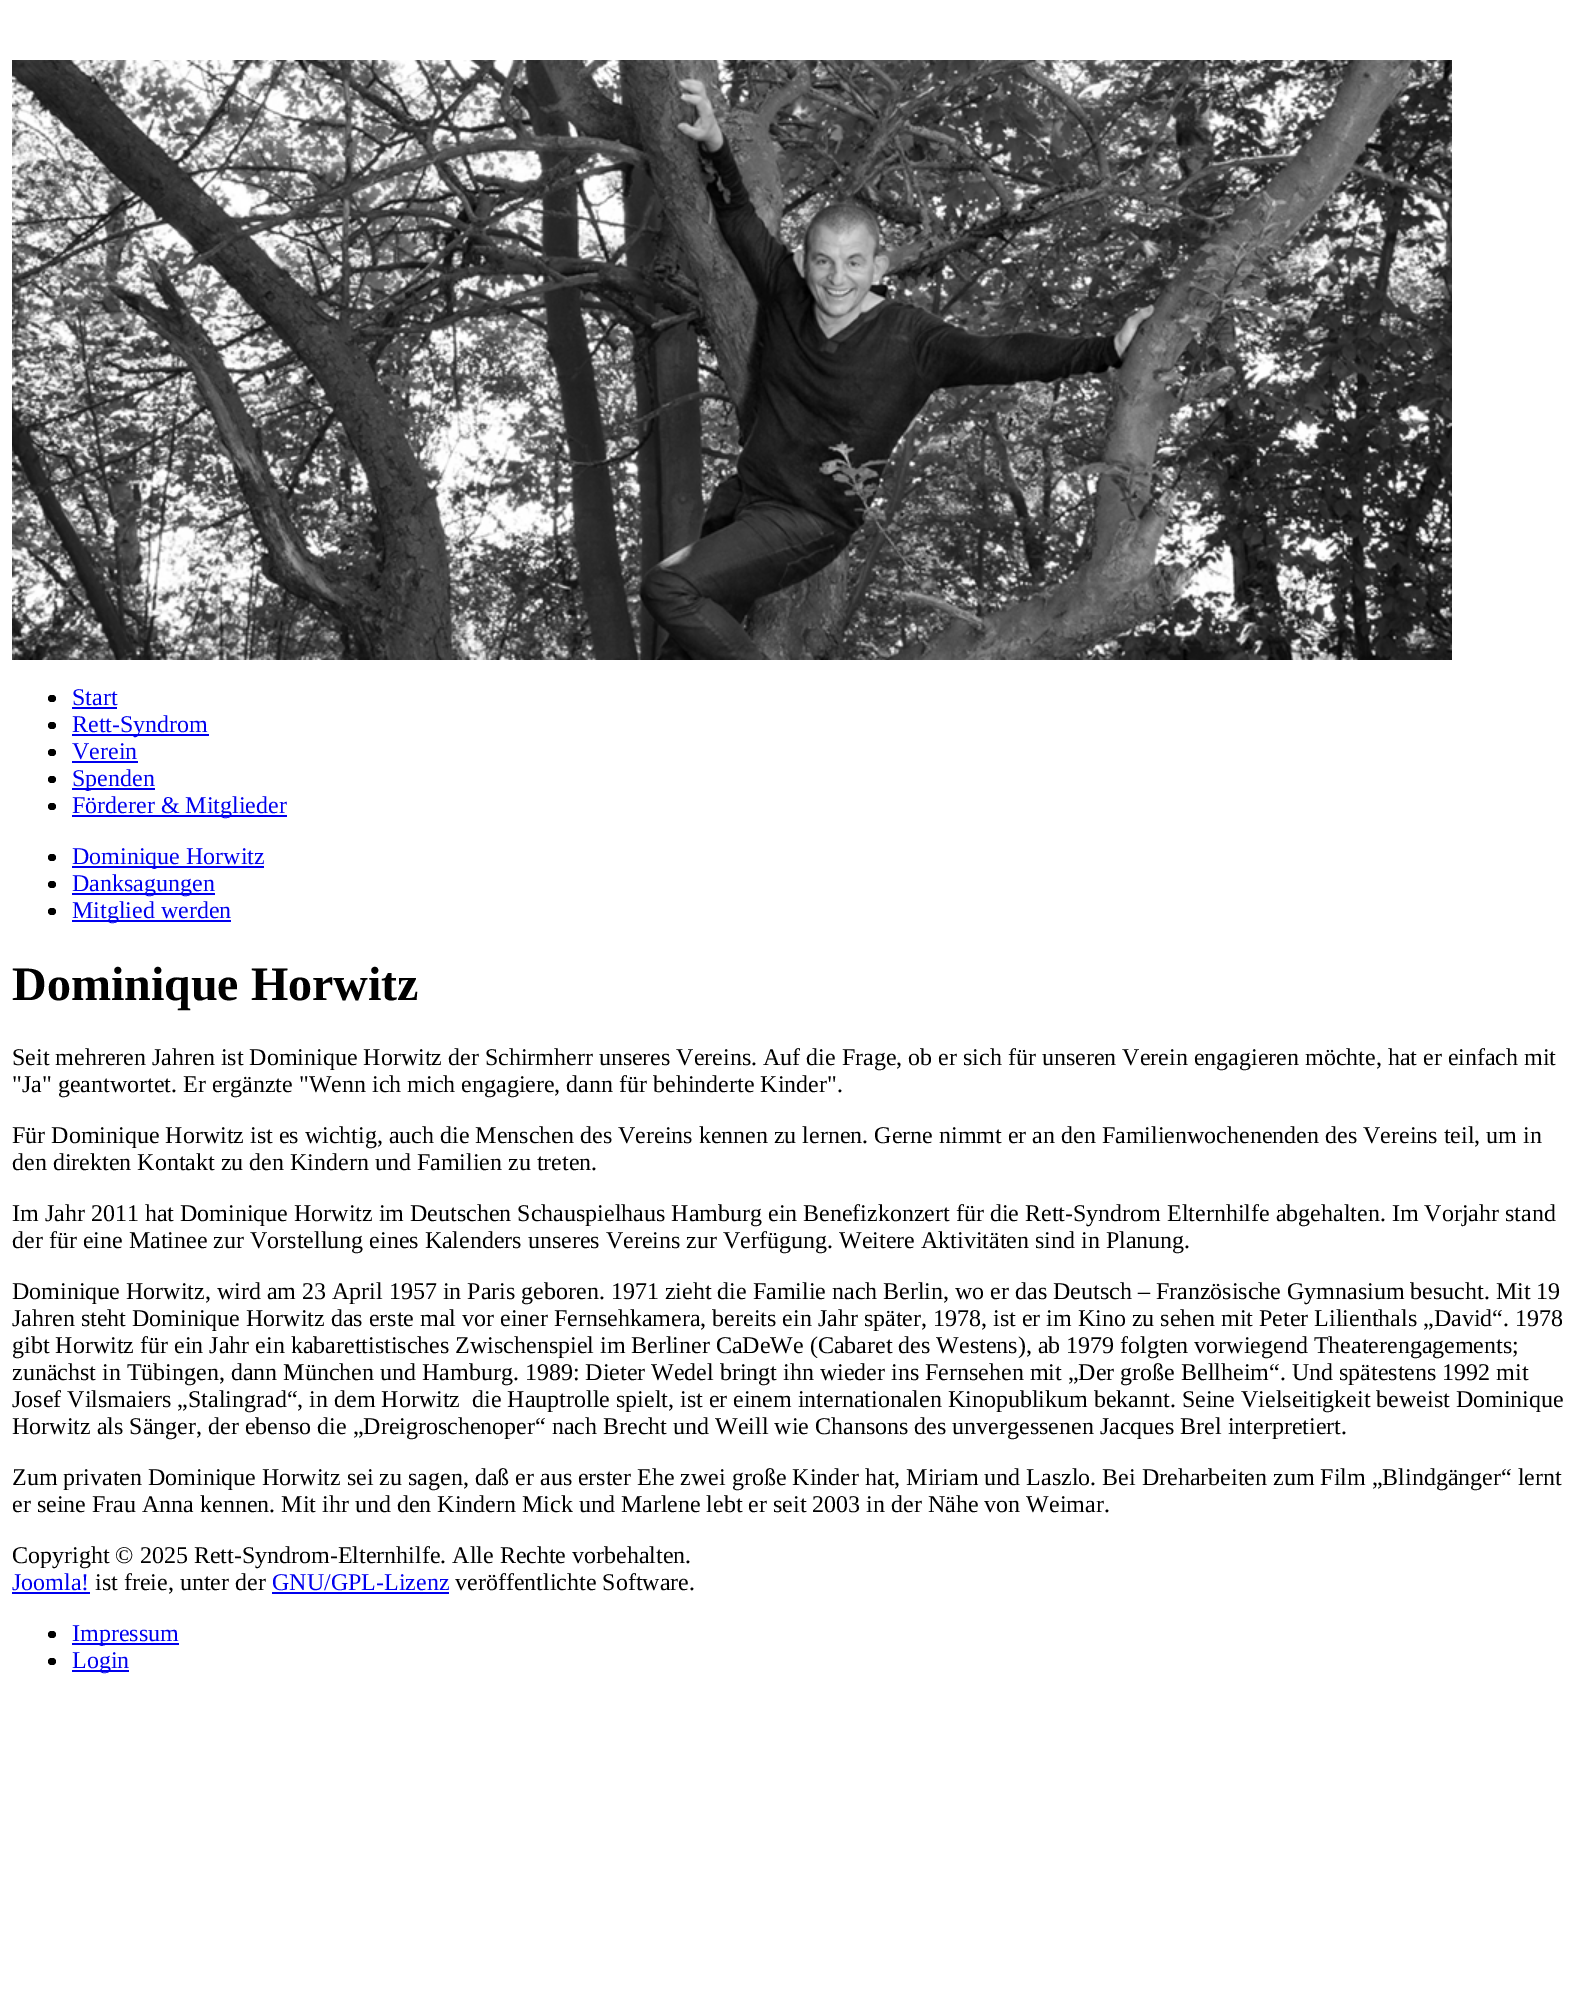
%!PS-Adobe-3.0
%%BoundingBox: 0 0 1585 1989
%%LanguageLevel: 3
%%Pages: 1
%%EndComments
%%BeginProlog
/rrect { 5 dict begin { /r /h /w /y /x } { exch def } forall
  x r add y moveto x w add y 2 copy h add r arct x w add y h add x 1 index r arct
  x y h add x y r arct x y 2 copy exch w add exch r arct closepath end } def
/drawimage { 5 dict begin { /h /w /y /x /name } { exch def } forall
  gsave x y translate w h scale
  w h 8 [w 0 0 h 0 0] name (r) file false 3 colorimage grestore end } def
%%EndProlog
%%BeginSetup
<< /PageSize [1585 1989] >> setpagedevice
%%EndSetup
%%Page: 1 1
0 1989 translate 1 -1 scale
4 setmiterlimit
1 setgray
0 0 1585 1989 rectfill
(images/1.raw) 12 60 1440 600 drawimage
0 setgray
48 695 8 7 3.5 rrect fill
0 0 0.933 setrgbcolor
72 707 45 2 rectfill
0 setgray
48 722 8 7 3.5 rrect fill
0 0 0.933 setrgbcolor
72 734 137 2 rectfill
0 setgray
48 749 8 7 3.5 rrect fill
0 0 0.933 setrgbcolor
72 761 66 2 rectfill
0 setgray
48 776 8 7 3.5 rrect fill
0 0 0.933 setrgbcolor
72 788 83 2 rectfill
0 setgray
48 803 8 7 3.5 rrect fill
0 0 0.933 setrgbcolor
72 815 215 2 rectfill
0 setgray
48 854 8 7 3.5 rrect fill
0 0 0.933 setrgbcolor
72 866 192 2 rectfill
0 setgray
48 881 8 7 3.5 rrect fill
0 0 0.933 setrgbcolor
72 893 143 2 rectfill
0 setgray
48 908 8 7 3.5 rrect fill
0 0 0.933 setrgbcolor
72 920 159 2 rectfill
12 1592 78 2 rectfill
272 1592 177 2 rectfill
0 setgray
48 1631 8 7 3.5 rrect fill
0 0 0.933 setrgbcolor
72 1643 107 2 rectfill
0 setgray
48 1658 8 7 3.5 rrect fill
0 0 0.933 setrgbcolor
72 1670 57 2 rectfill
/LiberationSerif-Regular [24 0 0 -24 0 0] selectfont
72 705 moveto (Start) show
72 732 moveto (Rett-Syndrom) show
72 759 moveto (Verein) show
72 786 moveto (Spenden) show
72 813 moveto (Förderer & Mitglieder) show
72 864 moveto (Dominique Horwitz) show
72 891 moveto (Danksagungen) show
72 918 moveto (Mitglied werden) show
/LiberationSerif-Bold [48 0 0 -48 0 0] selectfont
0 setgray
12 1000 moveto (Dominique Horwitz) show
/LiberationSerif-Regular [24 0 0 -24 0 0] selectfont
12 1065 moveto (Seit mehreren Jahren ist Dominique Horwitz der Schirmherr unseres Vereins. Auf die Frage, ob er sich für unseren Verein engagieren möchte, hat er einfach mit) show
12 1092 moveto ("Ja" geantwortet. Er ergänzte "Wenn ich mich engagiere, dann für behinderte Kinder".) show
12 1143 moveto (Für Dominique Horwitz ist es wichtig, auch die Menschen des Vereins kennen zu lernen. Gerne nimmt er an den Familienwochenenden des Vereins teil, um in) show
12 1170 moveto (den direkten Kontakt zu den Kindern und Familien zu treten.) show
12 1221 moveto (Im Jahr 2011 hat Dominique Horwitz im Deutschen Schauspielhaus Hamburg ein Benefizkonzert für die Rett-Syndrom Elternhilfe abgehalten. Im Vorjahr stand) show
12 1248 moveto (der für eine Matinee zur Vorstellung eines Kalenders unseres Vereins zur Verfügung. Weitere Aktivitäten sind in Planung.) show
12 1299 moveto (Dominique Horwitz, wird am 23 April 1957 in Paris geboren. 1971 zieht die Familie nach Berlin, wo er das Deutsch – Französische Gymnasium besucht. Mit 19) show
12 1326 moveto (Jahren steht Dominique Horwitz das erste mal vor einer Fernsehkamera, bereits ein Jahr später, 1978, ist er im Kino zu sehen mit Peter Lilienthals „David“. 1978) show
12 1353 moveto (gibt Horwitz für ein Jahr ein kabarettistisches Zwischenspiel im Berliner CaDeWe \(Cabaret des Westens\), ab 1979 folgten vorwiegend Theaterengagements;) show
12 1380 moveto (zunächst in Tübingen, dann München und Hamburg. 1989: Dieter Wedel bringt ihn wieder ins Fernsehen mit „Der große Bellheim“. Und spätestens 1992 mit) show
12 1407 moveto (Josef Vilsmaiers „Stalingrad“, in dem Horwitz  die Hauptrolle spielt, ist er einem internationalen Kinopublikum bekannt. Seine Vielseitigkeit beweist Dominique) show
12 1434 moveto (Horwitz als Sänger, der ebenso die „Dreigroschenoper“ nach Brecht und Weill wie Chansons des unvergessenen Jacques Brel interpretiert.) show
12 1485 moveto (Zum privaten Dominique Horwitz sei zu sagen, daß er aus erster Ehe zwei große Kinder hat, Miriam und Laszlo. Bei Dreharbeiten zum Film „Blindgänger“ lernt) show
12 1512 moveto (er seine Frau Anna kennen. Mit ihr und den Kindern Mick und Marlene lebt er seit 2003 in der Nähe von Weimar.) show
12 1563 moveto (Copyright © 2025 Rett-Syndrom-Elternhilfe. Alle Rechte vorbehalten.) show
0 0 0.933 setrgbcolor
12 1590 moveto (Joomla!) show
0 setgray
95 1590 moveto (ist freie, unter der) show
0 0 0.933 setrgbcolor
272 1590 moveto (GNU/GPL-Lizenz) show
0 setgray
455 1590 moveto (veröffentlichte Software.) show
0 0 0.933 setrgbcolor
72 1641 moveto (Impressum) show
72 1668 moveto (Login) show
showpage
%%EOF
